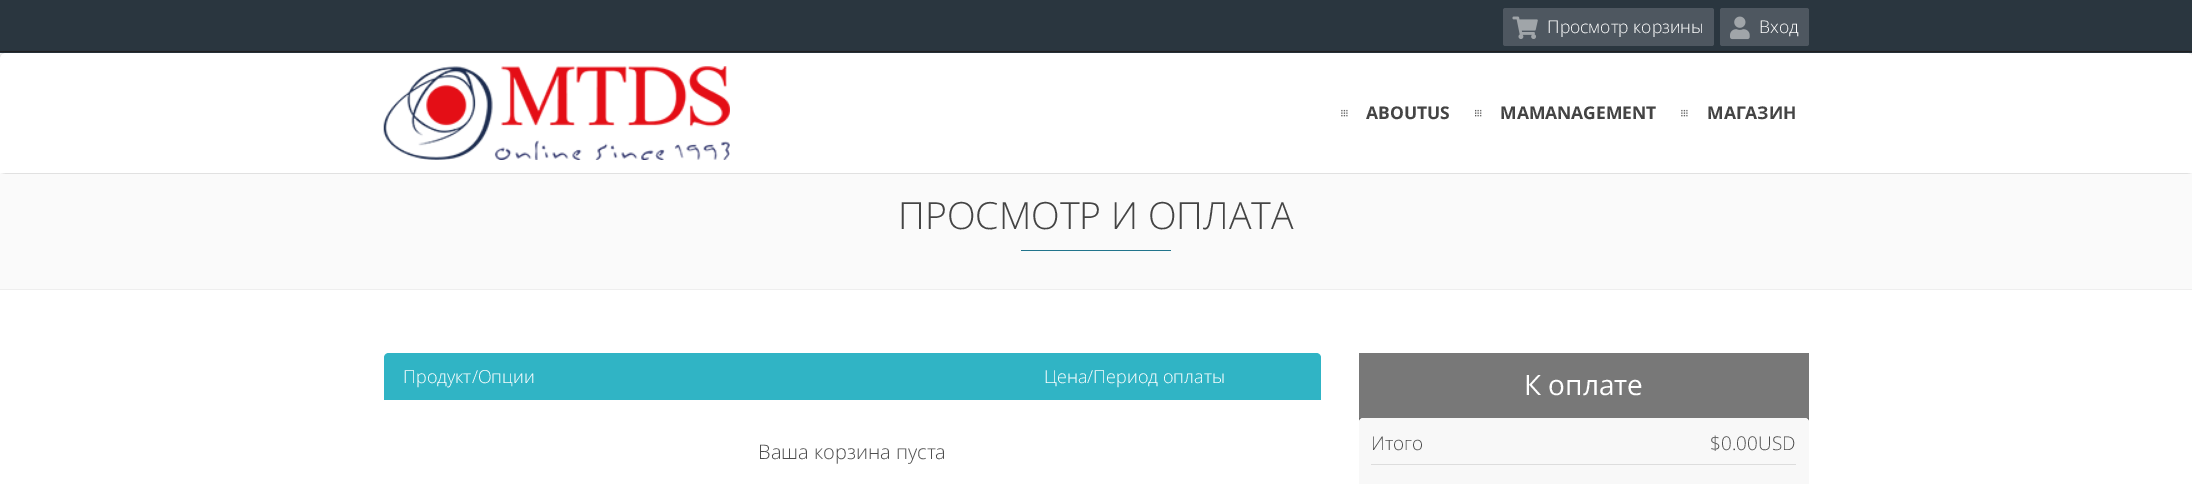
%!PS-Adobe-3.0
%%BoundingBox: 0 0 2192 484
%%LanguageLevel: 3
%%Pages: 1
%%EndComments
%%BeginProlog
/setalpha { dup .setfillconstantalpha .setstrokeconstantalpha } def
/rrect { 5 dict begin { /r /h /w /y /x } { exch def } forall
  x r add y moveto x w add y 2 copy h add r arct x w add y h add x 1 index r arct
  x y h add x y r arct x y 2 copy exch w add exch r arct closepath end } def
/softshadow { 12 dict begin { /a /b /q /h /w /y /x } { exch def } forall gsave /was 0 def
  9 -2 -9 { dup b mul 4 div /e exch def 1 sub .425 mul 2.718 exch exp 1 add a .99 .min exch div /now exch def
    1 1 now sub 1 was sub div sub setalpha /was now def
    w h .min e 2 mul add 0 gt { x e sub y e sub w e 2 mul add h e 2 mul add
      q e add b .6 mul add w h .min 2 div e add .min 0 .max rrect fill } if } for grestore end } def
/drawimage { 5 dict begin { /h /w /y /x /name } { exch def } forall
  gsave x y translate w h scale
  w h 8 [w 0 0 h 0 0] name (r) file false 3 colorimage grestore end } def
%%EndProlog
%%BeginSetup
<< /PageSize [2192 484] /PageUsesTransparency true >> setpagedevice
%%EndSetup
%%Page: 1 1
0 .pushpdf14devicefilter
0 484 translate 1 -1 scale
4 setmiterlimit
1 setgray
0 0 2192 484 rectfill
0.165 0.212 0.247 setrgbcolor
0 0 2192 53 rectfill
0.133 setgray
0 51 2192 1 rectfill
0.306 0.341 0.376 setrgbcolor
1503 8 211 38 2.5 rrect fill
(images/1.raw) 1512 16 26 23 drawimage
1720 8 89 38 2.5 rrect fill
(images/2.raw) 1730 16 20 24 drawimage
0 setgray
0 53 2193 120 6 2 0.3 softshadow
1 setgray
newpath 6 53 moveto 2187 53 lineto 2190.5 53 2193 55.5 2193 59 curveto 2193 173 lineto 0 173 lineto 0 59 lineto 0 55.5 2.5 53 6 53 curveto closepath fill
(images/3.raw) 383 66 347 94 drawimage
(images/4.raw) 1341 109 7 8 drawimage
(images/5.raw) 1475 109 7 8 drawimage
(images/4.raw) 1681 109 7 8 drawimage
0.98 setgray
0 174 2192 115 rectfill
0.933 setgray
0 289 2192 1 rectfill
0.129 0.455 0.549 setrgbcolor
1021 250 150 1 rectfill
0.188 0.706 0.773 setrgbcolor
newpath 389 353 moveto 1316 353 lineto 1319 353 1321 355 1321 358 curveto 1321 400 lineto 384 400 lineto 384 358 lineto 384 355 386 353 389 353 curveto closepath fill
0.4 setgray
1359 418 450 4 rectfill
0.471 setgray
1359 353 450 65 rectfill
0.973 setgray
1359 418 450 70 4 rrect fill
0.867 setgray
1371 464 425 1 rectfill
/OpenSans-Light [17.5 0 0 -17.5 0 0] selectfont
1 setgray
1547 33 moveto (Просмотр корзины) show
1759 33 moveto (Вход) show
/OpenSans-Bold [17.5 0 0 -17.5 0 0] selectfont
0.267 setgray
1366 119 moveto (ABOUTUS) show
1500 119 moveto (MAMANAGEMENT) show
1707 119 moveto (МАГАЗИН) show
/OpenSans-Light [37.5 0 0 -37.5 0 0] selectfont
898 229 moveto (ПРОСМОТР И ОПЛАТА) show
/OpenSans-Light [18 0 0 -18 0 0] selectfont
1 setgray
403 383 moveto (Продукт/Опции) show
1044 383 moveto (Цена/Период оплаты) show
/OpenSans-Light [20 0 0 -20 0 0] selectfont
0.306 setgray
758 459 moveto (Ваша корзина пуста) show
/OpenSans-Regular [28 0 0 -28 0 0] selectfont
1 setgray
1524 395 moveto (К оплате) show
/OpenSans-Light [19 0 0 -19 0 0] selectfont
0.306 setgray
1371 450 moveto (Итого) show
1710 450 moveto ($0.00USD) show
.poppdf14devicefilter showpage
%%EOF
